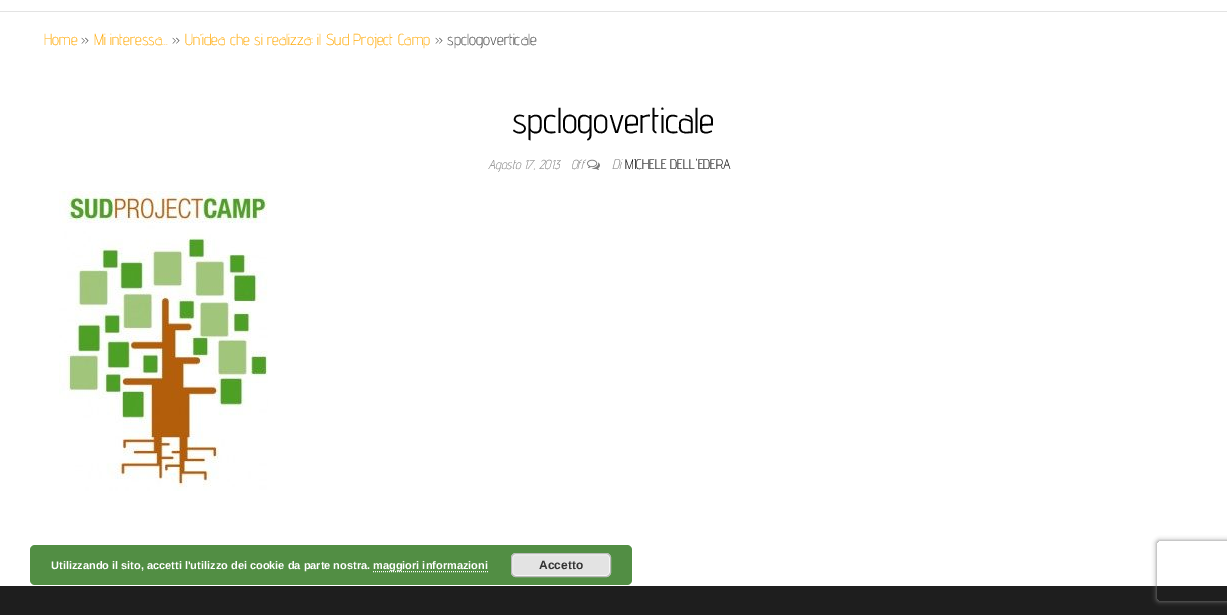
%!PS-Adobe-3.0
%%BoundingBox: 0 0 1227 615
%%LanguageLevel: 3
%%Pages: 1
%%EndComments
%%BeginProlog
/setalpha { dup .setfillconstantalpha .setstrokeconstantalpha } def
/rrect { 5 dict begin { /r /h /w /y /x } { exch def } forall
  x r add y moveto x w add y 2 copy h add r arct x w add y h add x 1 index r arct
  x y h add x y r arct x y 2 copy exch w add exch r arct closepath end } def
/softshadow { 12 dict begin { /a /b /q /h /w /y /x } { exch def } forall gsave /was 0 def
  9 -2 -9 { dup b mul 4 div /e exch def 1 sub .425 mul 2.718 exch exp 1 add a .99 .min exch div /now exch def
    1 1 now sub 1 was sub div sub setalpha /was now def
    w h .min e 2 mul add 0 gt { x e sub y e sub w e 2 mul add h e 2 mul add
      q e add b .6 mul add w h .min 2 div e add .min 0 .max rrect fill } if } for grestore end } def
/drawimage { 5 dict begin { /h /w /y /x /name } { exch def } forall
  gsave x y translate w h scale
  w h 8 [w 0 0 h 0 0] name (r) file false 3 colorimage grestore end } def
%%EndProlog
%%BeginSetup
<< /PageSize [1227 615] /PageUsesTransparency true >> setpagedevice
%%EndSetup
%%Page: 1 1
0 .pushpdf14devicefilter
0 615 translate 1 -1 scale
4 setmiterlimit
1 setgray
0 0 1227 615 rectfill
0.89 setgray
0 11 1227 1 rectfill
(images/1.raw) 587 159 13 11 drawimage
(images/2.raw) 59 191 209 300 drawimage
0.322 0.557 0.267 setrgbcolor
30 545 602 40 5 rrect fill
1 setgray
[1 1] 0 setdash
newpath 373 571.5 moveto 488 571.5 lineto stroke
0.89 setgray
511 553 100 24 5 rrect fill
0.965 setgray
[] 0 setdash
512.5 554.5 97 21 3.5 rrect stroke
0.733 setgray
511.5 553.5 99 23 4.5 rrect stroke
0.118 setgray
0 586 1227 29 rectfill
gsave
newpath 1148 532 moveto 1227 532 lineto 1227 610 lineto 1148 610 lineto closepath 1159 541 moveto 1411 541 lineto 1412 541 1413 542 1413 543 curveto 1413 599 lineto 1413 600 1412 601 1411 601 curveto 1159 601 lineto 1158 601 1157 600 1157 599 curveto 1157 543 lineto 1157 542 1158 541 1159 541 curveto closepath eoclip newpath
0.502 setgray
1157 541 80 60 2 2.5 1 softshadow
grestore
/AdventPro-Light [16 0 0 -16 0 0] selectfont
1 0.655 0 setrgbcolor
44 45 moveto (Home) show
0.251 setgray
81 45 moveto (») show
1 0.655 0 setrgbcolor
94 45 moveto (Mi interessa...) show
0.251 setgray
172 45 moveto (») show
1 0.655 0 setrgbcolor
185 45 moveto (Un’idea che si realizza: il Sud Project Camp) show
0.251 setgray
435 45 moveto (» spclogoverticale) show
/AdventPro-Regular [36 0 0 -36 0 0] selectfont
0 setgray
512 133 moveto (spclogoverticale) show
/AdventPro-LightItalic [13 0 0 -13 0 0] selectfont
0.475 setgray
488 169 moveto (Agosto 17, 2013) show
571 169 moveto (Off) show
/AdventPro-LightItalic [14 0 0 -14 0 0] selectfont
612 169 moveto (Di) show
/AdventPro-Light [14 0 0 -14 0 0] selectfont
0 setgray
625 169 moveto (MICHELE DELL'EDERA) show
/LiberationSans-Bold [11 0 0 -11 0 0] selectfont
1 setgray
51 569 moveto (Utilizzando il sito, accetti l'utilizzo dei cookie da parte nostra.) show
373 569 moveto (maggiori informazioni) show
/LiberationSans-Bold [12 0 0 -12 0 0] selectfont
0.2 setgray
539 569 moveto (Accetto) show
.poppdf14devicefilter showpage
%%EOF
